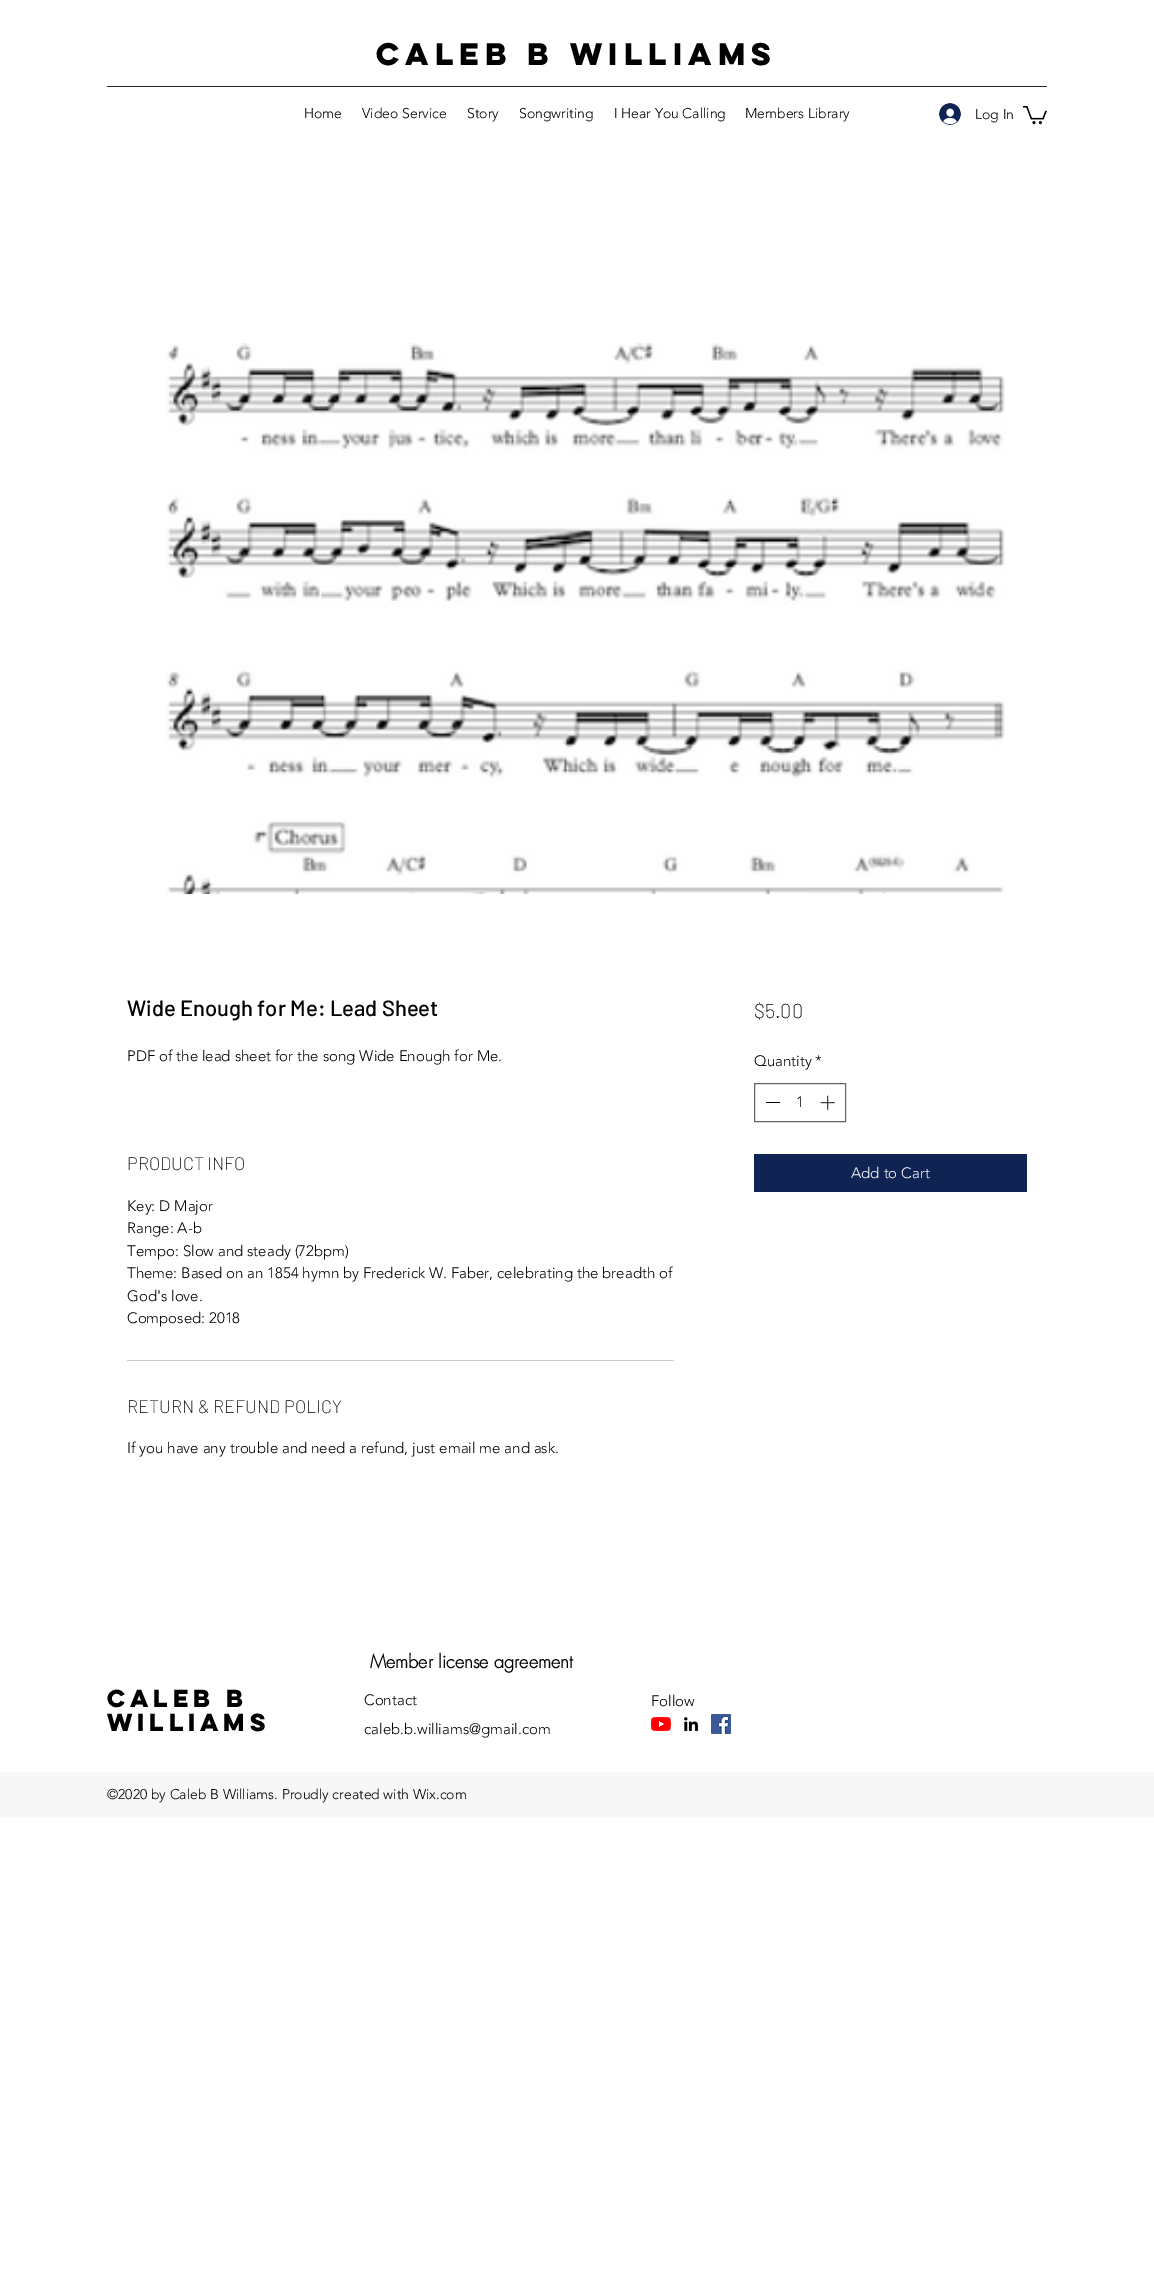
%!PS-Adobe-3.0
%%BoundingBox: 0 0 1154 2272
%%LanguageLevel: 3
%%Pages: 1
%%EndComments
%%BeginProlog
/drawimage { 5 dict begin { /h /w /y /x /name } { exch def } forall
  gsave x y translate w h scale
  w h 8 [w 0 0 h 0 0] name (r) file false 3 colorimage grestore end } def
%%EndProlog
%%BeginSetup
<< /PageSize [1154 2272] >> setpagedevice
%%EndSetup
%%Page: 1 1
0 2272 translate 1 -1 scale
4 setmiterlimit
1 setgray
0 0 1154 2272 rectfill
0.149 setgray
107 86 940 1 rectfill
(images/1.raw) 939 103 22 22 drawimage
(images/2.raw) 1023 106 24 19 drawimage
(images/3.raw) 166 343 839 551 drawimage
0.8 setgray
127 1360 547 1 rectfill
0.4 setgray
754.5 1083.5 91 38 rectstroke
0 setgray
766 1102 14 1 rectfill
(images/4.raw) 820 1095 15 15 drawimage
0.059 0.141 0.325 setrgbcolor
754 1154 273 38 rectfill
(images/5.raw) 651 1716 20 16 drawimage
(images/6.raw) 684 1717 15 15 drawimage
(images/7.raw) 711 1714 20 20 drawimage
0.969 setgray
0 1772 1154 45 rectfill
/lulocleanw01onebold-Bold [28 0 0 -28 0 0] selectfont
0 setgray
376 65 moveto (Caleb B Williams) show
/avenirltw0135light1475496-Light [14 0 0 -14 0 0] selectfont
304 118 moveto (Home) show
362 118 moveto (Video Service) show
467 118 moveto (Story) show
519 118 moveto (Songwriting) show
614 118 moveto (I Hear You Calling) show
745 118 moveto (Members Library) show
975 119 moveto (Log In) show
/Barlow-Medium [22 0 0 -22 0 0] selectfont
127 1016 moveto (Wide Enough for Me: Lead Sheet) show
/avenirltw0135light1475496-Light [15 0 0 -15 0 0] selectfont
127 1061 moveto (PDF of the lead sheet for the song Wide Enough for Me.) show
/Barlow-ExtraLight [18 0 0 -18 0 0] selectfont
127 1170 moveto (PRODUCT INFO) show
/avenirltw0135light1475496-Light [15 0 0 -15 0 0] selectfont
127 1211 moveto (Key: D Major) show
127 1233 moveto (Range: A-b) show
127 1256 moveto (Tempo: Slow and steady \(72bpm\)) show
127 1278 moveto (Theme: Based on an 1854 hymn by Frederick W. Faber, celebrating the breadth of) show
127 1301 moveto (God's love.) show
127 1323 moveto (Composed: 2018) show
/Barlow-ExtraLight [18 0 0 -18 0 0] selectfont
127 1413 moveto (RETURN & REFUND POLICY) show
/avenirltw0135light1475496-Light [15 0 0 -15 0 0] selectfont
127 1453 moveto (If you have any trouble and need a refund, just email me and ask.) show
/Barlow-ExtraLight [20 0 0 -20 0 0] selectfont
754 1018 moveto ($5.00) show
/avenirltw0135light1475496-Light [15 0 0 -15 0 0] selectfont
754 1066 moveto (Quantity *) show
796 1107 moveto (1) show
1 setgray
851 1178 moveto (Add to Cart) show
/futura-Bold [18 0 0 -18 0 0] selectfont
0 setgray
370 1668 moveto (Member license agreement) show
/lulocleanw01onebold-Bold [22 0 0 -22 0 0] selectfont
107 1707 moveto (Caleb B) show
107 1731 moveto (Williams) show
/avenirltw0135light1475496-Light [15 0 0 -15 0 0] selectfont
364 1705 moveto (Contact) show
651 1706 moveto (Follow) show
364 1734 moveto (caleb.b.williams@gmail.com) show
/avenirltw0135light1475496-Light [14 0 0 -14 0 0] selectfont
107 1799 moveto (©2020 by Caleb B Williams. Proudly created with Wix.com) show
showpage
%%EOF
